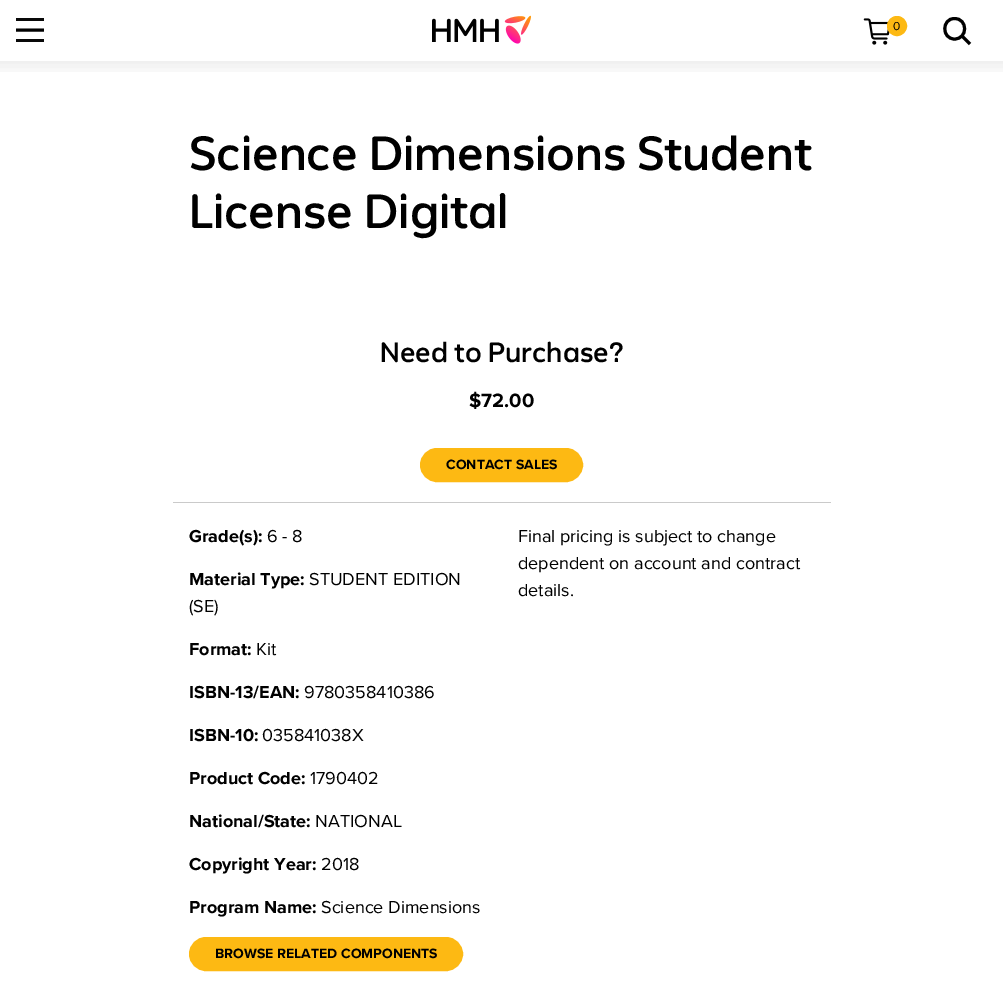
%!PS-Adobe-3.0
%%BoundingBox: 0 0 1003 999
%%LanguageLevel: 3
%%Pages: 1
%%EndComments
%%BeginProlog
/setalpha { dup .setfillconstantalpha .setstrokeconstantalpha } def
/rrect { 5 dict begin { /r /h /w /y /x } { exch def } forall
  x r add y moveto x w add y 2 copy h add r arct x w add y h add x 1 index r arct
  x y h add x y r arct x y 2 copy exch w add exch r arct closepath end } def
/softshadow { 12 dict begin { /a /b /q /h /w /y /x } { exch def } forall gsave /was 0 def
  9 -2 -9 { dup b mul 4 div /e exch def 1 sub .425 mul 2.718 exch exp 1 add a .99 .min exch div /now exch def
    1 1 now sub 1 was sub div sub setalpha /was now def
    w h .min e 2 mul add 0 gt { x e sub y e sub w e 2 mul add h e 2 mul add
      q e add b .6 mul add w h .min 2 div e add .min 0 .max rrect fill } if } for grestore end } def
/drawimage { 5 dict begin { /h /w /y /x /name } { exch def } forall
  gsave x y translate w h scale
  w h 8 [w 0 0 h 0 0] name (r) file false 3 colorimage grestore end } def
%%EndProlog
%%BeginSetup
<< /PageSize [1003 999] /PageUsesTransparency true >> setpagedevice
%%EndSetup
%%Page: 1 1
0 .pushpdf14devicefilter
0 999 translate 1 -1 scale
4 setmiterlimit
1 setgray
0 0 1003 999 rectfill
gsave
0 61 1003 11 rectclip
0 setgray
-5 -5 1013 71 0 9 0.08 softshadow
grestore
0.035 setgray
16 18 28 3 rectfill
16 39 28 3 rectfill
0 setgray
2.9 setlinewidth
2 setlinecap
newpath 17.5 30 moveto 42.5 30 lineto stroke
(images/1.raw) 432 15 99 29 drawimage
(images/2.raw) 863 18 27 27 drawimage
0.992 0.725 0.075 setrgbcolor
newpath 897 26 9.5 0 360 arc closepath gsave fill grestore
1 setlinewidth
0 setlinecap
stroke
0 setgray
3 setlinewidth
1 setlinecap
newpath 954.5 18.5 moveto 941.5 18.5 941.5 39 954.5 39 curveto 968 39 968 18.5 954.5 18.5 curveto closepath stroke
0 setlinecap
newpath 961.5 35.5 moveto 970 44 lineto stroke
0.992 0.725 0.075 setrgbcolor
421 449 161 32 16 rrect gsave fill grestore
2 setlinewidth
stroke
0.792 setgray
173 502 658 1 rectfill
0.992 0.725 0.075 setrgbcolor
190 938 272 32 16 rrect gsave fill grestore
stroke
/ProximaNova-Regular [12 0 0 -12 0 0] selectfont
0 setgray
893 30 moveto (0) show
/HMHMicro-Medium [48 0 0 -48 0 0] selectfont
189 170 moveto (Science Dimensions Student) show
189 228 moveto (License Digital) show
/HMHMicro-Medium [28 0 0 -28 0 0] selectfont
380 362 moveto (Need to Purchase?) show
/ProximaNova-Bold [20 0 0 -20 0 0] selectfont
469 407 moveto ($72.00) show
/ProximaNova-Bold [14 0 0 -14 0 0] selectfont
446 469 moveto (CONTACT SALES) show
/ProximaNova-Bold [18 0 0 -18 0 0] selectfont
189 542 moveto (Grade\(s\):) show
/ProximaNova-Regular [18 0 0 -18 0 0] selectfont
267 542 moveto (6 - 8) show
/ProximaNova-Bold [18 0 0 -18 0 0] selectfont
189 585 moveto (Material Type:) show
/ProximaNova-Regular [18 0 0 -18 0 0] selectfont
309 585 moveto (STUDENT EDITION) show
189 612 moveto (\(SE\)) show
/ProximaNova-Bold [18 0 0 -18 0 0] selectfont
189 655 moveto (Format:) show
/ProximaNova-Regular [18 0 0 -18 0 0] selectfont
256 655 moveto (Kit) show
/ProximaNova-Bold [18 0 0 -18 0 0] selectfont
189 698 moveto (ISBN-13/EAN:) show
/ProximaNova-Regular [18 0 0 -18 0 0] selectfont
304 698 moveto (9780358410386) show
/ProximaNova-Bold [18 0 0 -18 0 0] selectfont
189 741 moveto (ISBN-10:) show
/ProximaNova-Regular [18 0 0 -18 0 0] selectfont
262 741 moveto (035841038X) show
/ProximaNova-Bold [18 0 0 -18 0 0] selectfont
189 784 moveto (Product Code:) show
/ProximaNova-Regular [18 0 0 -18 0 0] selectfont
310 784 moveto (1790402) show
/ProximaNova-Bold [18 0 0 -18 0 0] selectfont
189 827 moveto (National/State:) show
/ProximaNova-Regular [18 0 0 -18 0 0] selectfont
315 827 moveto (NATIONAL) show
/ProximaNova-Bold [18 0 0 -18 0 0] selectfont
189 870 moveto (Copyright Year:) show
/ProximaNova-Regular [18 0 0 -18 0 0] selectfont
321 870 moveto (2018) show
/ProximaNova-Bold [18 0 0 -18 0 0] selectfont
189 913 moveto (Program Name:) show
/ProximaNova-Regular [18 0 0 -18 0 0] selectfont
321 913 moveto (Science Dimensions) show
/ProximaNova-Bold [14 0 0 -14 0 0] selectfont
215 958 moveto (BROWSE RELATED COMPONENTS) show
/ProximaNova-Regular [18 0 0 -18 0 0] selectfont
518 542 moveto (Final pricing is subject to change) show
518 569 moveto (dependent on account and contract) show
518 596 moveto (details.) show
.poppdf14devicefilter showpage
%%EOF
